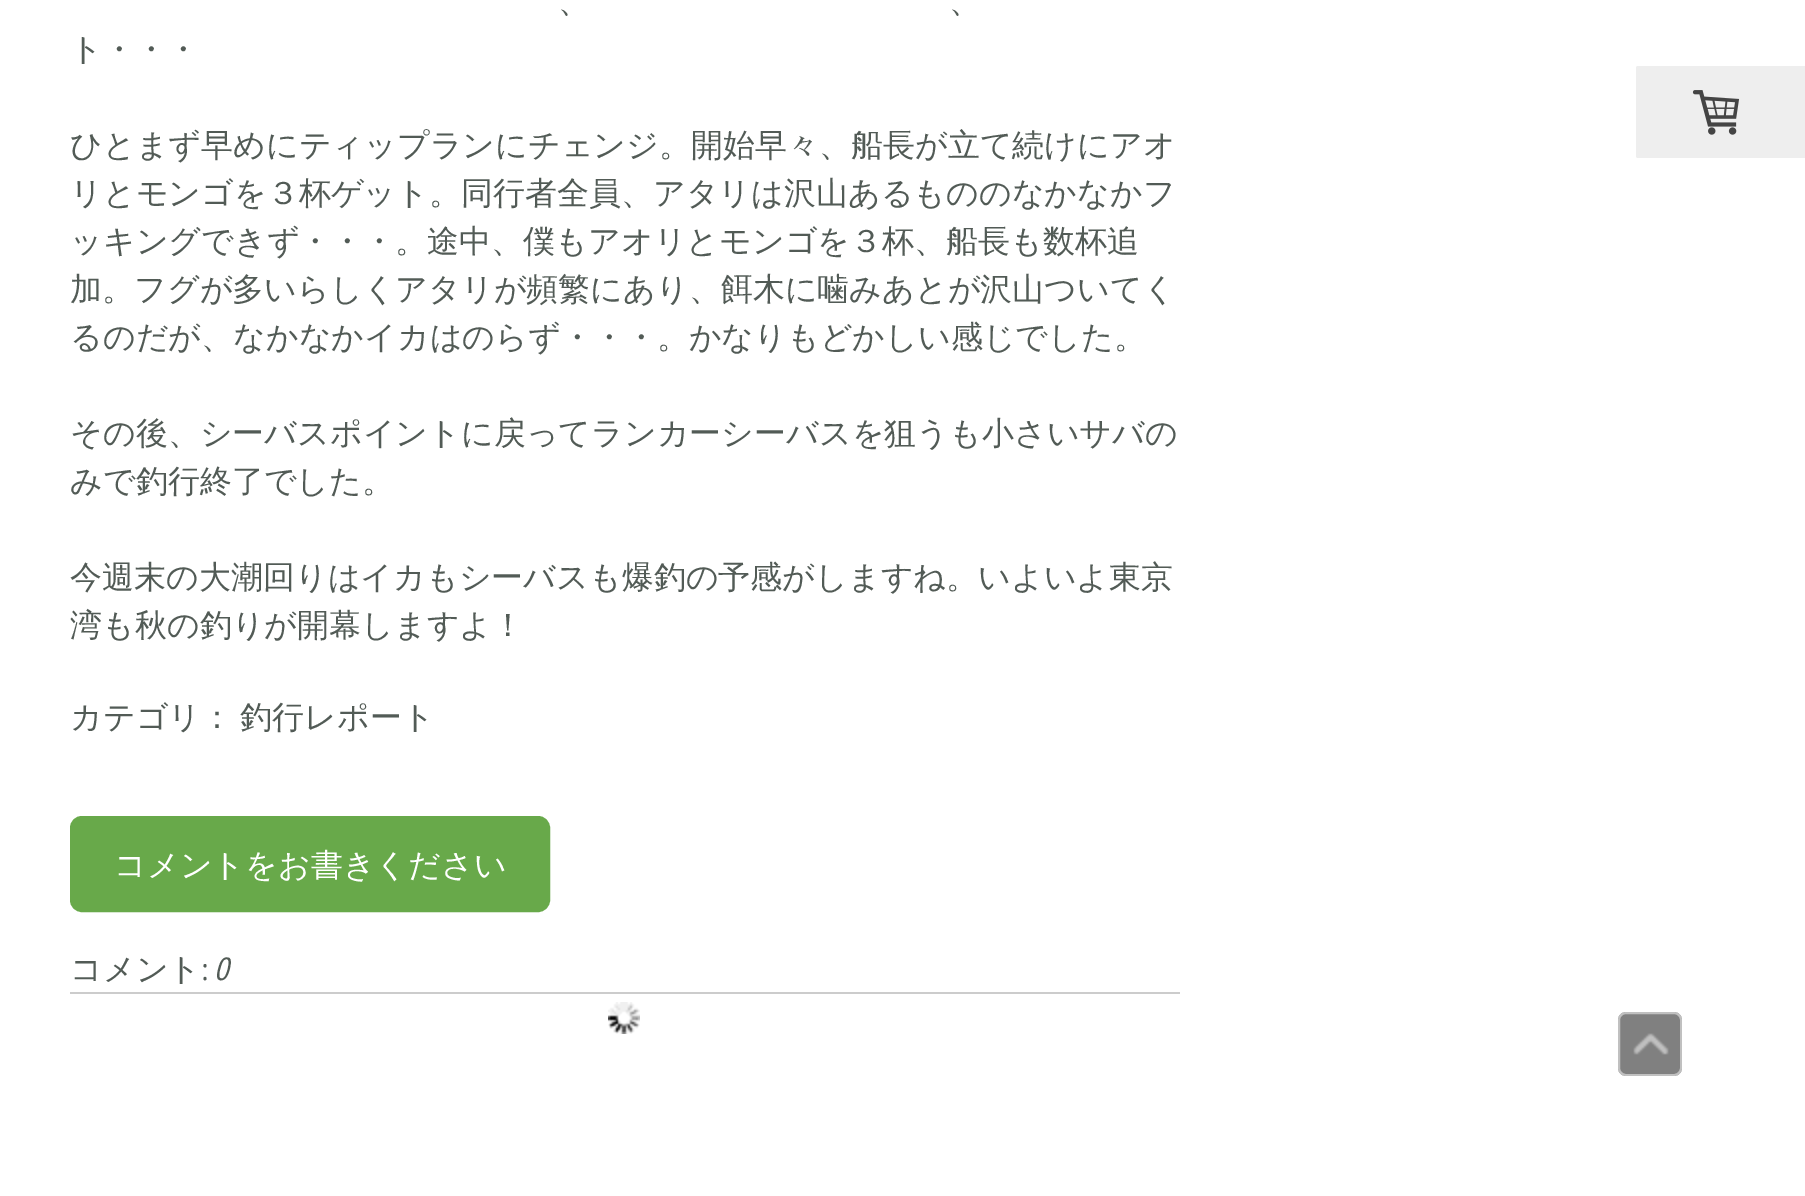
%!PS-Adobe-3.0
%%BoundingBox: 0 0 1805 1196
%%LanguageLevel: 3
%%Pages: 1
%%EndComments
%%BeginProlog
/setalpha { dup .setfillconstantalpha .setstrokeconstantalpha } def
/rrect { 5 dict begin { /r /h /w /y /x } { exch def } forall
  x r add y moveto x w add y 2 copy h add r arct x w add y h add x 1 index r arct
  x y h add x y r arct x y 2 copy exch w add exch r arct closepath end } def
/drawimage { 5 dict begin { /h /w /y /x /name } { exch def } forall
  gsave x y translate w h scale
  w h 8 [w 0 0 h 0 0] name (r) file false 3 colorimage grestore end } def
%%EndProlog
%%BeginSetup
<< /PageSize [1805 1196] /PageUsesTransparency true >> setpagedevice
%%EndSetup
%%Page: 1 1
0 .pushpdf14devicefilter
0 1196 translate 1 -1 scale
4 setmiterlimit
1 setgray
0 0 1805 1196 rectfill
0.408 0.663 0.29 setrgbcolor
72 818 476 92 10 rrect gsave fill grestore
4 setlinewidth
stroke
(images/1.raw) 608 1002 32 32 drawimage
0.8 setgray
70 992 1110 2 rectfill
0.933 setgray
1636 66 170 92 2 rrect fill
(images/2.raw) 1692 90 48 45 drawimage
0.502 setgray
1618 1012 64 64 8 rrect fill
0.5 setalpha
1 setgray
2 setlinewidth
1619 1013 62 62 7 rrect stroke
1 setalpha
(images/3.raw) 1633 1033 36 22 drawimage
/WenQuanYiZenHei-Medium [32 0 0 -32 0 0] selectfont
0.322 0.357 0.337 setrgbcolor
558 12 moveto (、) show
949 12 moveto (、) show
70 60 moveto (ト・・・) show
70 156 moveto (ひとまず早めにティップランにチェンジ。開始早々、船長が立て続けにアオ) show
70 204 moveto (リとモンゴを３杯ゲット。同行者全員、アタリは沢山あるもののなかなかフ) show
70 252 moveto (ッキングできず・・・。途中、僕もアオリとモンゴを３杯、船長も数杯追) show
70 300 moveto (加。フグが多いらしくアタリが頻繁にあり、餌木に噛みあとが沢山ついてく) show
70 348 moveto (るのだが、なかなかイカはのらず・・・。かなりもどかしい感じでした。) show
70 444 moveto (その後、シーバスポイントに戻ってランカーシーバスを狙うも小さいサバの) show
70 492 moveto (みで釣行終了でした。) show
70 588 moveto (今週末の大潮回りはイカもシーバスも爆釣の予感がしますね。いよいよ東京) show
70 636 moveto (湾も秋の釣りが開幕しますよ！) show
70 728 moveto (カテゴリ：) show
240 728 moveto (釣行レポート) show
1 setgray
114 876 moveto (コメントをお書きください) show
0.322 0.357 0.337 setrgbcolor
70 980 moveto (コメント) show
/PTSansNarrow-Regular [32 0 0 -32 0 0] selectfont
201 980 moveto (:) show
/PTSansNarrow-Italic [32 0 0 -32 0 0] selectfont
214 980 moveto (0) show
.poppdf14devicefilter showpage
%%EOF
